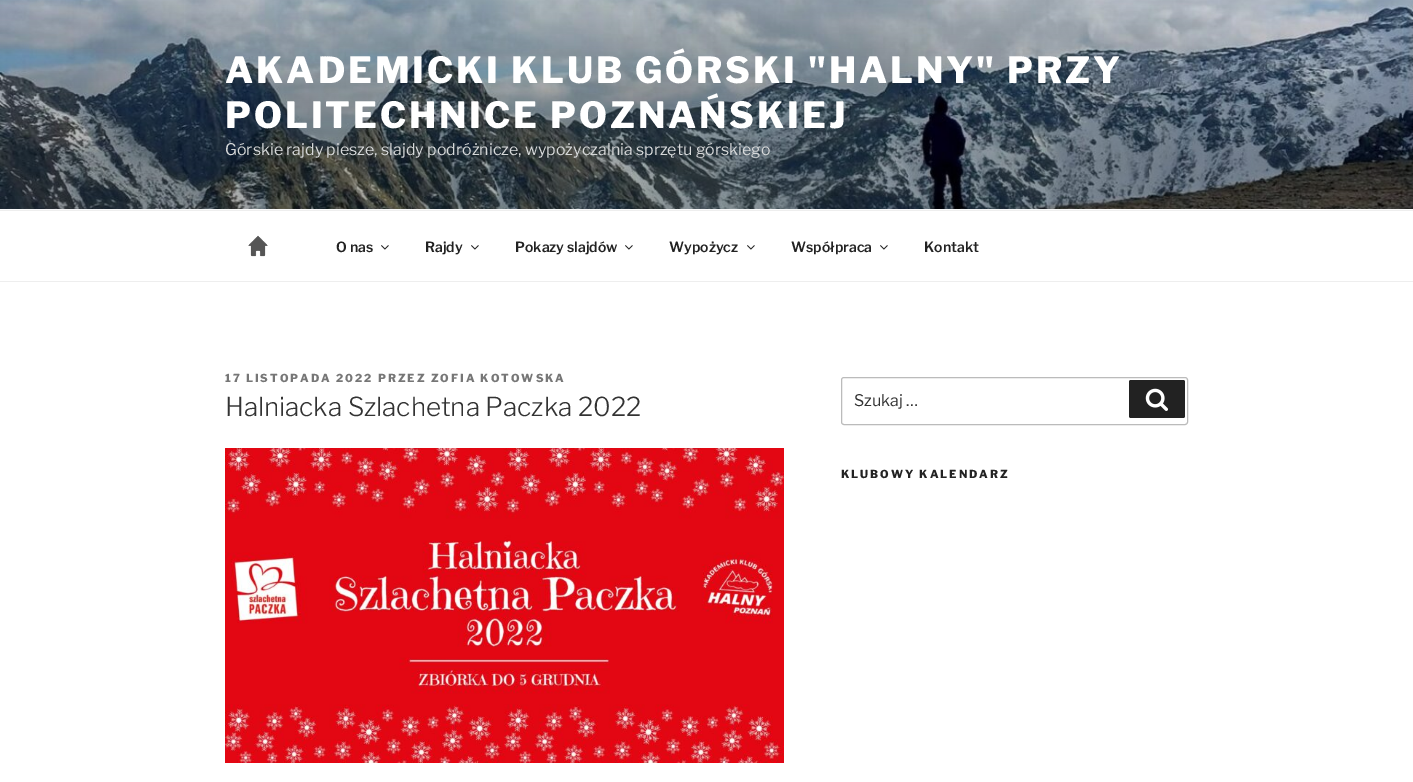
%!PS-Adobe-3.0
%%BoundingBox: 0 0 1413 782
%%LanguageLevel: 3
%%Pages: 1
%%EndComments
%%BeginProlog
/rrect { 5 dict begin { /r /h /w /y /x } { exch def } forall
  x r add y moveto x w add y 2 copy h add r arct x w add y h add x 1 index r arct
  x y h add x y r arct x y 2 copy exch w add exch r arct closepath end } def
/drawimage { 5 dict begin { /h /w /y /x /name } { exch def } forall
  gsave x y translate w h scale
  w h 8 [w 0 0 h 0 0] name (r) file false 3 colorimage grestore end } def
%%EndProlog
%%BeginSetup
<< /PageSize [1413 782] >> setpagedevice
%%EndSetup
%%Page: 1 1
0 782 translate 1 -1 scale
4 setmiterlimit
1 setgray
0 0 1413 782 rectfill
0.98 setgray
0 209 1413 1 rectfill
(images/1.raw) 0 0 1413 209 drawimage
0.933 setgray
0 210 1413 1 rectfill
0 281 1413 1 rectfill
(images/2.raw) 248 235 20 22 drawimage
(images/3.raw) 381 245 8 5 drawimage
(images/3.raw) 471 245 8 5 drawimage
(images/3.raw) 625 245 8 5 drawimage
(images/3.raw) 747 245 8 5 drawimage
(images/3.raw) 880 245 8 5 drawimage
(images/4.raw) 225 448 559 315 drawimage
0.733 setgray
841.5 377.5 346 47 2.5 rrect stroke
0.133 setgray
1129 380 56 38 2 rrect fill
(images/5.raw) 1145 388 23 23 drawimage
/LibreFranklin-Thin [36 0 0 -36 0 0] selectfont
1 setgray
225 83 moveto 2.9 0 (AKADEMICKI KLUB GÓRSKI "HALNY" PRZY) ashow
225 128 moveto 2.9 0 (POLITECHNICE POZNAŃSKIEJ) ashow
/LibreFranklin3-Thin [16 0 0 -16 0 0] selectfont
0.839 0.847 0.851 setrgbcolor
225 155 moveto (Górskie rajdy piesze, slajdy podróżnicze, wypożyczalnia sprzętu górskiego) show
/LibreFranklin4-Thin [14 0 0 -14 0 0] selectfont
0.133 setgray
336 252 moveto (O nas) show
425 252 moveto (Rajdy) show
515 252 moveto (Pokazy slajdów) show
669 252 moveto (Wypożycz) show
791 252 moveto (Współpraca) show
924 252 moveto (Kontakt) show
/LibreFranklin-Thin [11 0 0 -11 0 0] selectfont
0.463 setgray
225 382 moveto 2 0 (17 LISTOPADA 2022 PRZEZ ZOFIA KOTOWSKA) ashow
/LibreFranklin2-Thin [26 0 0 -26 0 0] selectfont
0.2 setgray
225 416 moveto (Halniacka Szlachetna Paczka 2022) show
/LibreFranklin3-Thin [16 0 0 -16 0 0] selectfont
854 406 moveto (Szukaj …) show
/LibreFranklin-Thin [11 0 0 -11 0 0] selectfont
0.133 setgray
841 478 moveto 2 0 (KLUBOWY KALENDARZ) ashow
showpage
%%EOF
